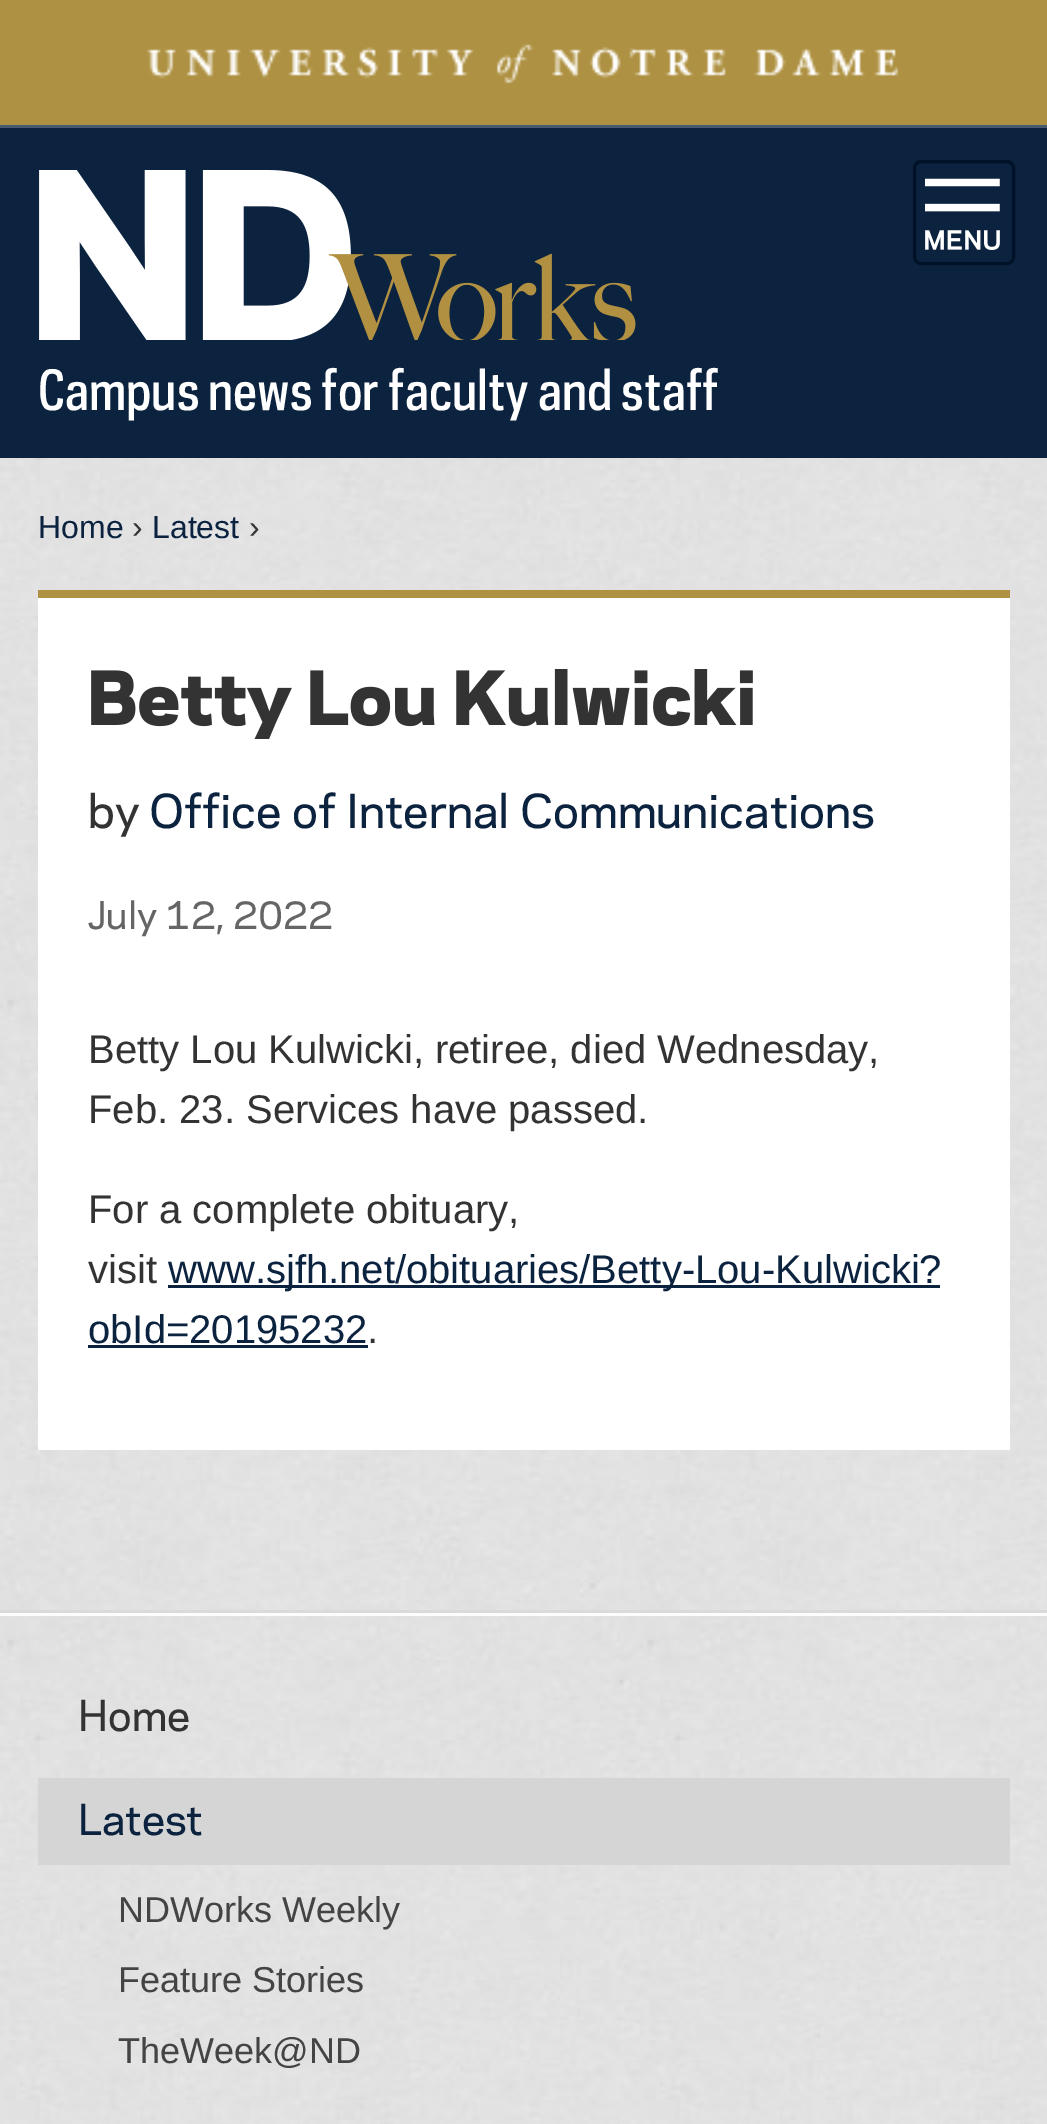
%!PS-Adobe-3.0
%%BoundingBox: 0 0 1047 2124
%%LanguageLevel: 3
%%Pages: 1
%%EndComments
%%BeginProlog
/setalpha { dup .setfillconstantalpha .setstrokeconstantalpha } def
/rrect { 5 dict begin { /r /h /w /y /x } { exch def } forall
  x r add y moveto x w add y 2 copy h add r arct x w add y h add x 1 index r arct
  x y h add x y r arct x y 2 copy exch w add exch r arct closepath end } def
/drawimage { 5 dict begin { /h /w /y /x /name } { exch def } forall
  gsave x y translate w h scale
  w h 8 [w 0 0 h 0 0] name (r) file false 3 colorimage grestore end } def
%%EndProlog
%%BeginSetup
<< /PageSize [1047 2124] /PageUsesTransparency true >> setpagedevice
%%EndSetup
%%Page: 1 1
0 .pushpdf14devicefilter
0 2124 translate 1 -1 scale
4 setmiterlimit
1 setgray
0 0 1047 2124 rectfill
(images/1.raw) 0 458 1047 1666 drawimage
0.682 0.569 0.259 setrgbcolor
0 0 1047 125 rectfill
(images/2.raw) 147 44 752 40 drawimage
0.047 0.137 0.251 setrgbcolor
0 128 1047 330 rectfill
0.286 0.353 0.439 setrgbcolor
0 125 1047 3 rectfill
0 0.071 0.153 setrgbcolor
3 setlinewidth
914.5 161.5 99 102 6.5 rrect stroke
(images/3.raw) 925 178 75 72 drawimage
(images/4.raw) 39 170 597 170 drawimage
1 setgray
38 598 972 852 rectfill
0.682 0.569 0.259 setrgbcolor
38 590 972 8 rectfill
(images/5.raw) 91 669 662 70 drawimage
0.047 0.137 0.251 setrgbcolor
168 1285 772 3 rectfill
88 1345 280 3 rectfill
0.9 setalpha
1 setgray
0 1613 1047 3 rectfill
1 setalpha
0.855 setgray
0 1610 1047 3 rectfill
0.835 setgray
38 1778 972 87 rectfill
/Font-Regular [52 0 0 -52 0 0] selectfont
1 setgray
38 410 moveto (Campus news for faculty and staff) show
/LiberationSans-Regular [32 0 0 -32 0 0] selectfont
0.047 0.137 0.251 setrgbcolor
38 538 moveto (Home) show
0.2 setgray
132 538 moveto (›) show
0.047 0.137 0.251 setrgbcolor
152 538 moveto (Latest) show
0.2 setgray
249 538 moveto (›) show
/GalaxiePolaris-Regular [44 0 0 -44 0 0] selectfont
88 828 moveto (by) show
0.047 0.137 0.251 setrgbcolor
149 828 moveto (Office of Internal Communications) show
/GalaxiePolaris-Regular [36 0 0 -36 0 0] selectfont
0.396 setgray
88 929 moveto (July 12, 2022) show
/LiberationSans-Regular [40 0 0 -40 0 0] selectfont
0.2 setgray
88 1063 moveto (Betty Lou Kulwicki, retiree, died Wednesday,) show
88 1123 moveto (Feb. 23. Services have passed.) show
88 1223 moveto (For a complete obituary,) show
88 1283 moveto (visit) show
0.047 0.137 0.251 setrgbcolor
168 1283 moveto (www.sjfh.net/obituaries/Betty-Lou-Kulwicki?) show
88 1343 moveto (obId=20195232) show
0.2 setgray
367 1343 moveto (.) show
/GalaxiePolaris-Regular [40 0 0 -40 0 0] selectfont
78 1731 moveto (Home) show
0.047 0.137 0.251 setrgbcolor
78 1835 moveto (Latest) show
/LiberationSans-Regular [36 0 0 -36 0 0] selectfont
0.267 setgray
118 1922 moveto (NDWorks Weekly) show
118 1992 moveto (Feature Stories) show
118 2063 moveto (TheWeek@ND) show
.poppdf14devicefilter showpage
%%EOF
